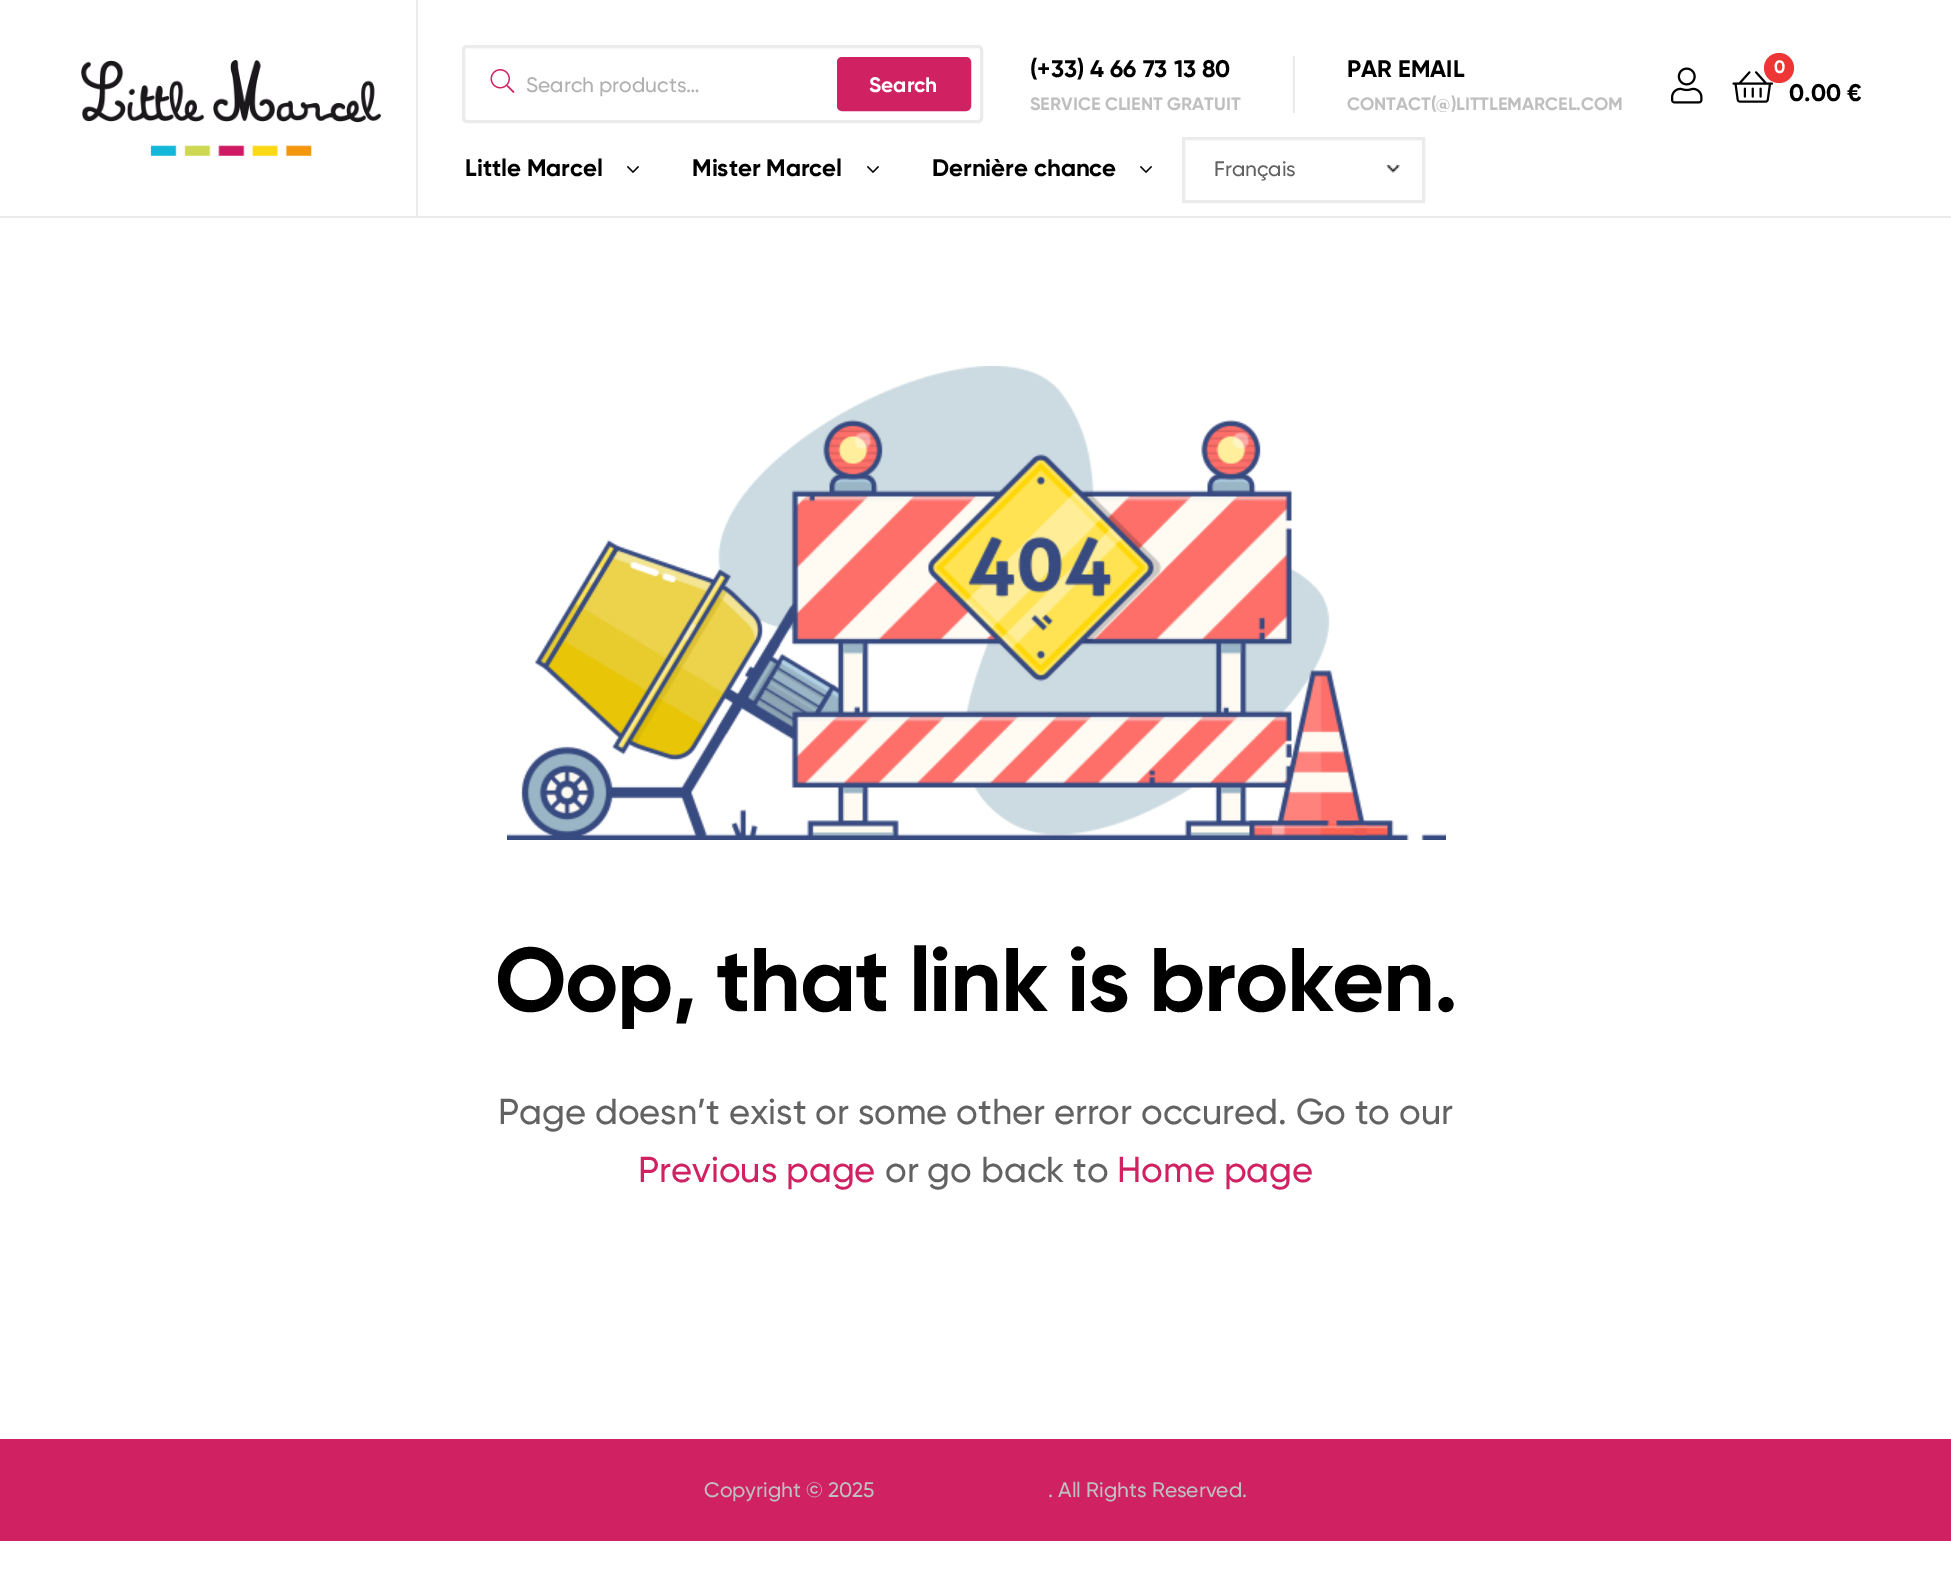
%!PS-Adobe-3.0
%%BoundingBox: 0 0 1951 1576
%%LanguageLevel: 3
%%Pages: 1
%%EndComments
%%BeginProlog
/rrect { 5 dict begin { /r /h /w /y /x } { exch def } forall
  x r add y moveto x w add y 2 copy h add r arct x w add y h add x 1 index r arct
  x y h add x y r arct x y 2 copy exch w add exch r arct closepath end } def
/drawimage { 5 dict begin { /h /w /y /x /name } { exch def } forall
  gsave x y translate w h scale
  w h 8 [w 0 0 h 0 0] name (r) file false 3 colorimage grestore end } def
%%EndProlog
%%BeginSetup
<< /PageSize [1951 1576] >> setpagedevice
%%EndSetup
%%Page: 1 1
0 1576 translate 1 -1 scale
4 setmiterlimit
1 setgray
0 0 1951 1576 rectfill
0.922 setgray
0 216 1951 2 rectfill
416 0 2 216 rectfill
(images/1.raw) 81 60 300 96 drawimage
3 setlinewidth
463.5 46.5 518 75 3.5 rrect stroke
(images/2.raw) 490 69 25 24 drawimage
0.816 0.129 0.388 setrgbcolor
838.5 58.5 131 51 3.5 rrect gsave fill grestore
stroke
0.922 setgray
1293 56 2 57 rectfill
(images/3.raw) 1671 67 32 37 drawimage
(images/4.raw) 1732 71 41 32 drawimage
0.937 0.212 0.212 setrgbcolor
newpath 1779 68 15 0 360 arc closepath fill
(images/5.raw) 627 166 12 7 drawimage
(images/5.raw) 867 166 12 7 drawimage
(images/5.raw) 1140 166 12 7 drawimage
(images/6.raw) 1386 165 14 8 drawimage
0.922 setgray
1183.5 138.5 240 63 rectstroke
(images/7.raw) 507 366 939 474 drawimage
0.816 0.129 0.388 setrgbcolor
0 1439 1951 102 rectfill
/Gilroy-Medium [21 0 0 -21 0 0] selectfont
0.69 setgray
526 92 moveto (Search products…) show
/Gilroy-Bold [21 0 0 -21 0 0] selectfont
1 setgray
869 92 moveto (Search) show
/Gilroy-Bold [24 0 0 -24 0 0] selectfont
0 setgray
1030 77 moveto (\(+33\) 4 66 73 13 80) show
/Gilroy-Bold [18 0 0 -18 0 0] selectfont
0.749 setgray
1030 110 moveto (SERVICE CLIENT GRATUIT) show
/Gilroy-Bold [24 0 0 -24 0 0] selectfont
0 setgray
1347 77 moveto (PAR EMAIL) show
/Gilroy-Bold [18 0 0 -18 0 0] selectfont
0.749 setgray
1347 110 moveto (CONTACT\(@\)LITTLEMARCEL.COM) show
1 setgray
1774 73 moveto (0) show
/Gilroy-Bold [24 0 0 -24 0 0] selectfont
0 setgray
1789 101 moveto (0.00 €) show
465 176 moveto (Little Marcel) show
692 176 moveto (Mister Marcel) show
932 176 moveto (Dernière chance) show
/Gilroy-Medium [21 0 0 -21 0 0] selectfont
0.384 setgray
1214 176 moveto (Français) show
/Gilroy-Bold [90 0 0 -90 0 0] selectfont
0 setgray
495 1011 moveto -1.5 0 (Oop, that link is broken.) ashow
/Gilroy-Medium [36 0 0 -36 0 0] selectfont
0.384 setgray
498 1124 moveto (Page doesn’t exist or some other error occured. Go to our) show
0.816 0.129 0.388 setrgbcolor
638 1182 moveto (Previous page) show
0.384 setgray
885 1182 moveto (or go back to) show
0.816 0.129 0.388 setrgbcolor
1117 1182 moveto (Home page) show
/Gilroy-Medium [21 0 0 -21 0 0] selectfont
0.749 setgray
704 1497 moveto (Copyright © 2025) show
1048 1497 moveto (. All Rights Reserved.) show
showpage
%%EOF
